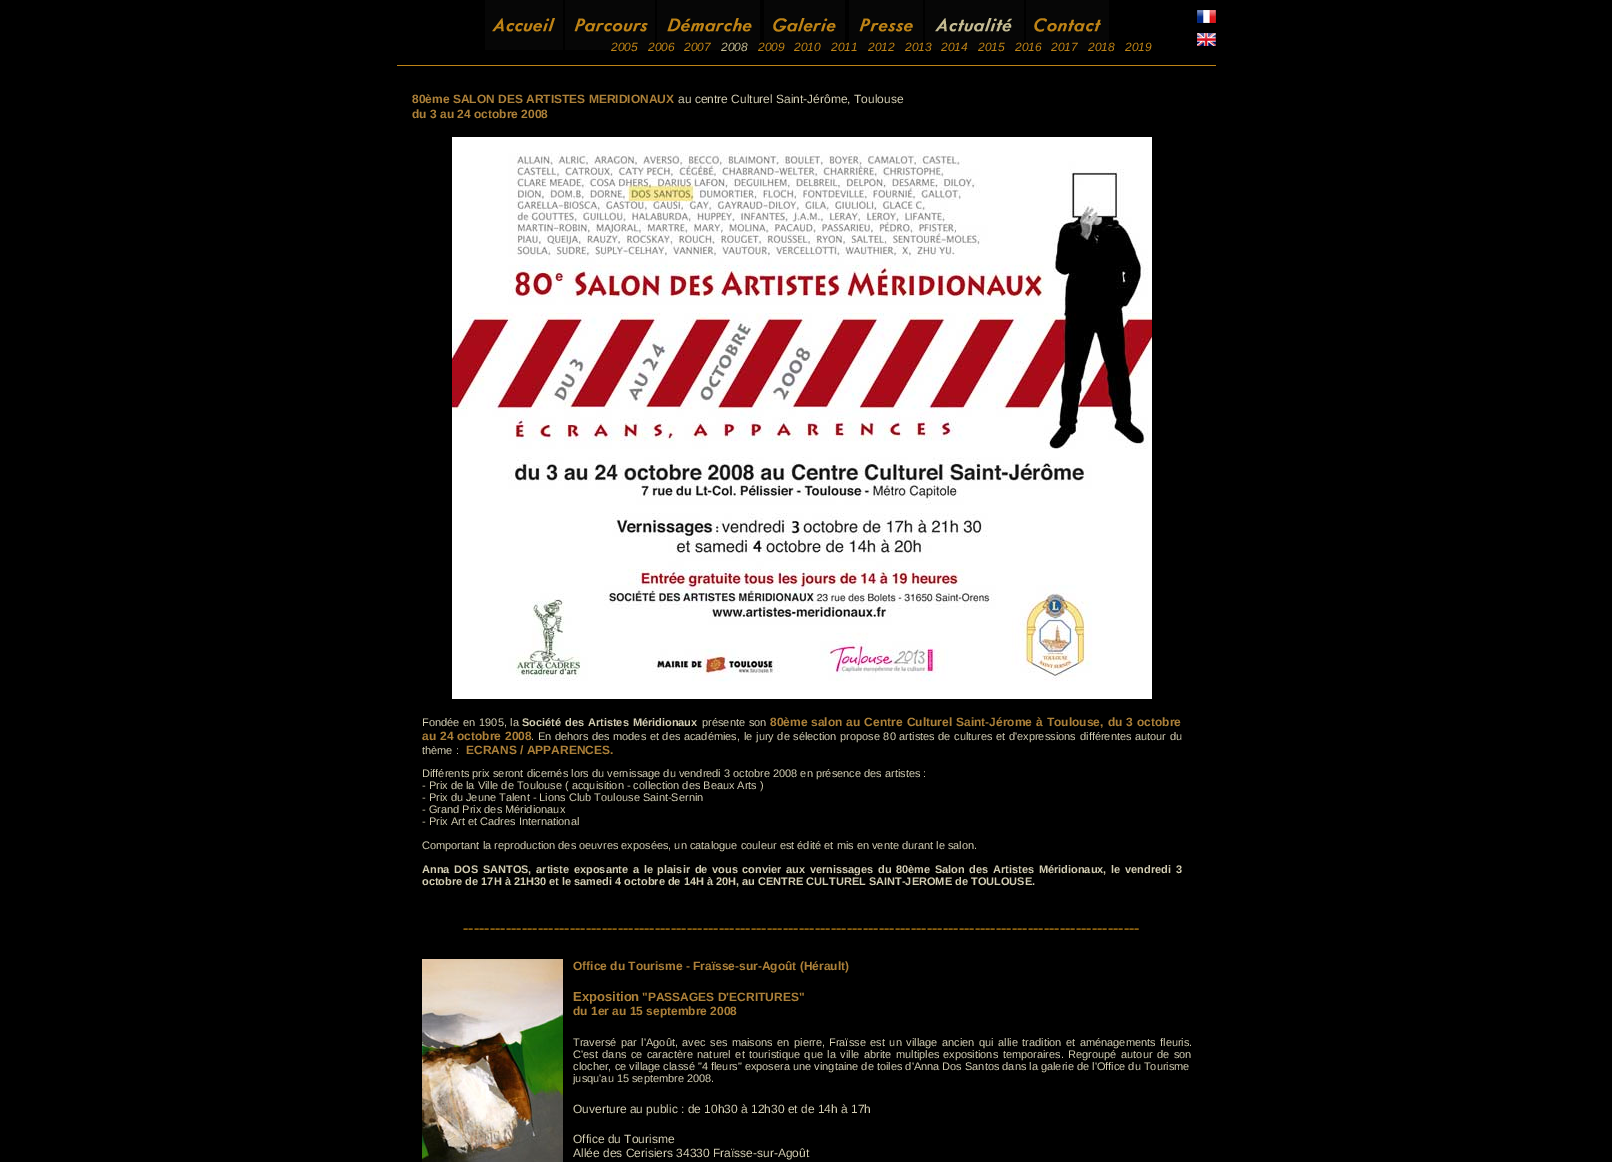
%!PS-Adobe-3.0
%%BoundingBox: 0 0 1612 1162
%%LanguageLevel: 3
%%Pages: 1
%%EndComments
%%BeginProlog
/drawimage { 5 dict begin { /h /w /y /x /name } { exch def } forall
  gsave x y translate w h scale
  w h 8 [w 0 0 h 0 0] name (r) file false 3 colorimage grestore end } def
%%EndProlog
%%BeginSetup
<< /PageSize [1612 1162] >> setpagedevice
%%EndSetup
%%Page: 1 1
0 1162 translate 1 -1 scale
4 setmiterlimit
0 setgray
0 0 1612 1162 rectfill
(images/1.raw) 1197 10 19 13 drawimage
(images/2.raw) 1197 33 19 13 drawimage
(images/3.raw) 485 0 78 50 drawimage
(images/4.raw) 565 0 90 50 drawimage
(images/5.raw) 657 0 103 50 drawimage
(images/6.raw) 764 0 81 50 drawimage
(images/7.raw) 849 0 74 50 drawimage
(images/8.raw) 925 0 99 50 drawimage
(images/9.raw) 1026 0 83 50 drawimage
0.745 0.514 0.086 setrgbcolor
397 65 819 1 rectfill
(images/10.raw) 452 137 700 562 drawimage
(images/11.raw) 422 959 141 203 drawimage
/LiberationSans-Italic [12 0 0 -12 0 0] selectfont
611 51 moveto (2005) show
648 51 moveto (2006) show
684 51 moveto (2007) show
0.769 0.733 0.576 setrgbcolor
721 51 moveto (2008) show
0.745 0.514 0.086 setrgbcolor
758 51 moveto (2009) show
794 51 moveto (2010) show
831 51 moveto (2011) show
868 51 moveto (2012) show
905 51 moveto (2013) show
941 51 moveto (2014) show
978 51 moveto (2015) show
1015 51 moveto (2016) show
1051 51 moveto (2017) show
1088 51 moveto (2018) show
1125 51 moveto (2019) show
/LiberationSans-Bold [12 0 0 -12 0 0] selectfont
0.675 0.502 0.224 setrgbcolor
412 103 moveto (80ème SALON DES ARTISTES MERIDIONAUX) show
/LiberationSans-Regular [12 0 0 -12 0 0] selectfont
0.827 0.804 0.698 setrgbcolor
678 103 moveto (au centre Culturel Saint-Jérôme, Toulouse) show
/LiberationSans-Bold [12 0 0 -12 0 0] selectfont
0.675 0.502 0.224 setrgbcolor
412 118 moveto (du 3 au 24 octobre 2008) show
/LiberationSans-Regular [11 0 0 -11 0 0] selectfont
0.827 0.804 0.698 setrgbcolor
422 726 moveto 0.75 0 32 (Fondée en 1905, la) widthshow
/LiberationSans-Bold [11 0 0 -11 0 0] selectfont
522 726 moveto (Société) show
565 726 moveto 0.75 0 32 (des Artistes Méridionaux) widthshow
/LiberationSans-Regular [11 0 0 -11 0 0] selectfont
702 726 moveto 0.75 0 32 (présente son) widthshow
/LiberationSans-Bold [12 0 0 -12 0 0] selectfont
0.675 0.502 0.224 setrgbcolor
770 726 moveto (80ème) show
811 726 moveto 0.75 0 32 (salon au Centre Culturel Saint-Jérome à Toulouse, du 3 octobre) widthshow
422 740 moveto 0.5 0 32 (au 24 octobre 2008) widthshow
/LiberationSans-Regular [11 0 0 -11 0 0] selectfont
0.827 0.804 0.698 setrgbcolor
531 740 moveto 0.5 0 32 (. En dehors des modes et des académies,) widthshow
744 740 moveto 0.5 0 32 (le jury de sélection propose 80 artistes de cultures et d'expressions) widthshow
1080 740 moveto 0.5 0 32 (différentes autour du) widthshow
422 754 moveto (thème :) show
/LiberationSans-Bold [12 0 0 -12 0 0] selectfont
0.675 0.502 0.224 setrgbcolor
466 754 moveto (ECRANS / APPARENCES.) show
/LiberationSans-Regular [11 0 0 -11 0 0] selectfont
0.827 0.804 0.698 setrgbcolor
422 777 moveto (Différents prix seront dicernés lors du vernissage du vendredi 3 octobre 2008 en présence des artistes :) show
422 789 moveto (- Prix de la Ville de Toulouse \( acquisition - collection des Beaux Arts \)) show
422 801 moveto (- Prix du Jeune Talent - Lions Club Toulouse Saint-Sernin) show
422 813 moveto (- Grand Prix des Méridionaux) show
422 825 moveto (- Prix Art et Cadres International) show
422 849 moveto (Comportant la reproduction des oeuvres exposées, un catalogue couleur est édité et mis en vente durant le salon.) show
/LiberationSans-Bold [11 0 0 -11 0 0] selectfont
422 873 moveto 1.6 0 32 (Anna DOS SANTOS, artiste exposante a le plaisir de vous convier) widthshow
786 873 moveto 1.6 0 32 (aux vernissages du 80ème Salon des Artistes Méridionaux,) widthshow
1111 873 moveto 2 0 32 (le vendredi 3) widthshow
422 885 moveto (octobre de 17H à 21H30 et le samedi 4 octobre de 14H à 20H, au CENTRE CULTUREL SAINT-JEROME de TOULOUSE.) show
/LiberationSerif-Regular [16 0 0 -16 0 0] selectfont
0.745 0.514 0.086 setrgbcolor
463 933 moveto (-------------------------------------------------------------------------------------------------------------------------------) show
/LiberationSans-Bold [12 0 0 -12 0 0] selectfont
0.675 0.502 0.224 setrgbcolor
573 970 moveto (Office du Tourisme - Fraïsse-sur-Agoût \(Hérault\)) show
/LiberationSans-Bold [13 0 0 -13 0 0] selectfont
573 1001 moveto (Exposition) show
/LiberationSans-Bold [12 0 0 -12 0 0] selectfont
642 1001 moveto ("PASSAGES D'ECRITURES") show
573 1015 moveto (du 1er au 15 septembre 2008) show
/LiberationSans-Regular [11 0 0 -11 0 0] selectfont
0.827 0.804 0.698 setrgbcolor
573 1046 moveto 1.5 0 32 (Traversé par l'Agoût, avec ses maisons en pierre,) widthshow
829 1046 moveto 1.5 0 32 (Fraïsse est un village ancien qui allie tradition et aménagements fleuris.) widthshow
573 1058 moveto 1.5 0 32 (C'est dans ce caractère naturel et touristique que la ville abrite multiples) widthshow
943 1058 moveto 1.5 0 32 (expositions temporaires. Regroupé autour de son) widthshow
573 1070 moveto (clocher, ce village classé "4 fleurs" exposera une vingtaine de toiles d'Anna Dos Santos dans la galerie de l'Office du Tourisme) show
573 1082 moveto (jusqu'au 15 septembre 2008.) show
/LiberationSans-Regular [12 0 0 -12 0 0] selectfont
573 1113 moveto (Ouverture au public : de 10h30 à 12h30 et de 14h à 17h) show
573 1143 moveto (Office du Tourisme) show
573 1157 moveto (Allée des Cerisiers 34330 Fraïsse-sur-Agoût) show
showpage
%%EOF
